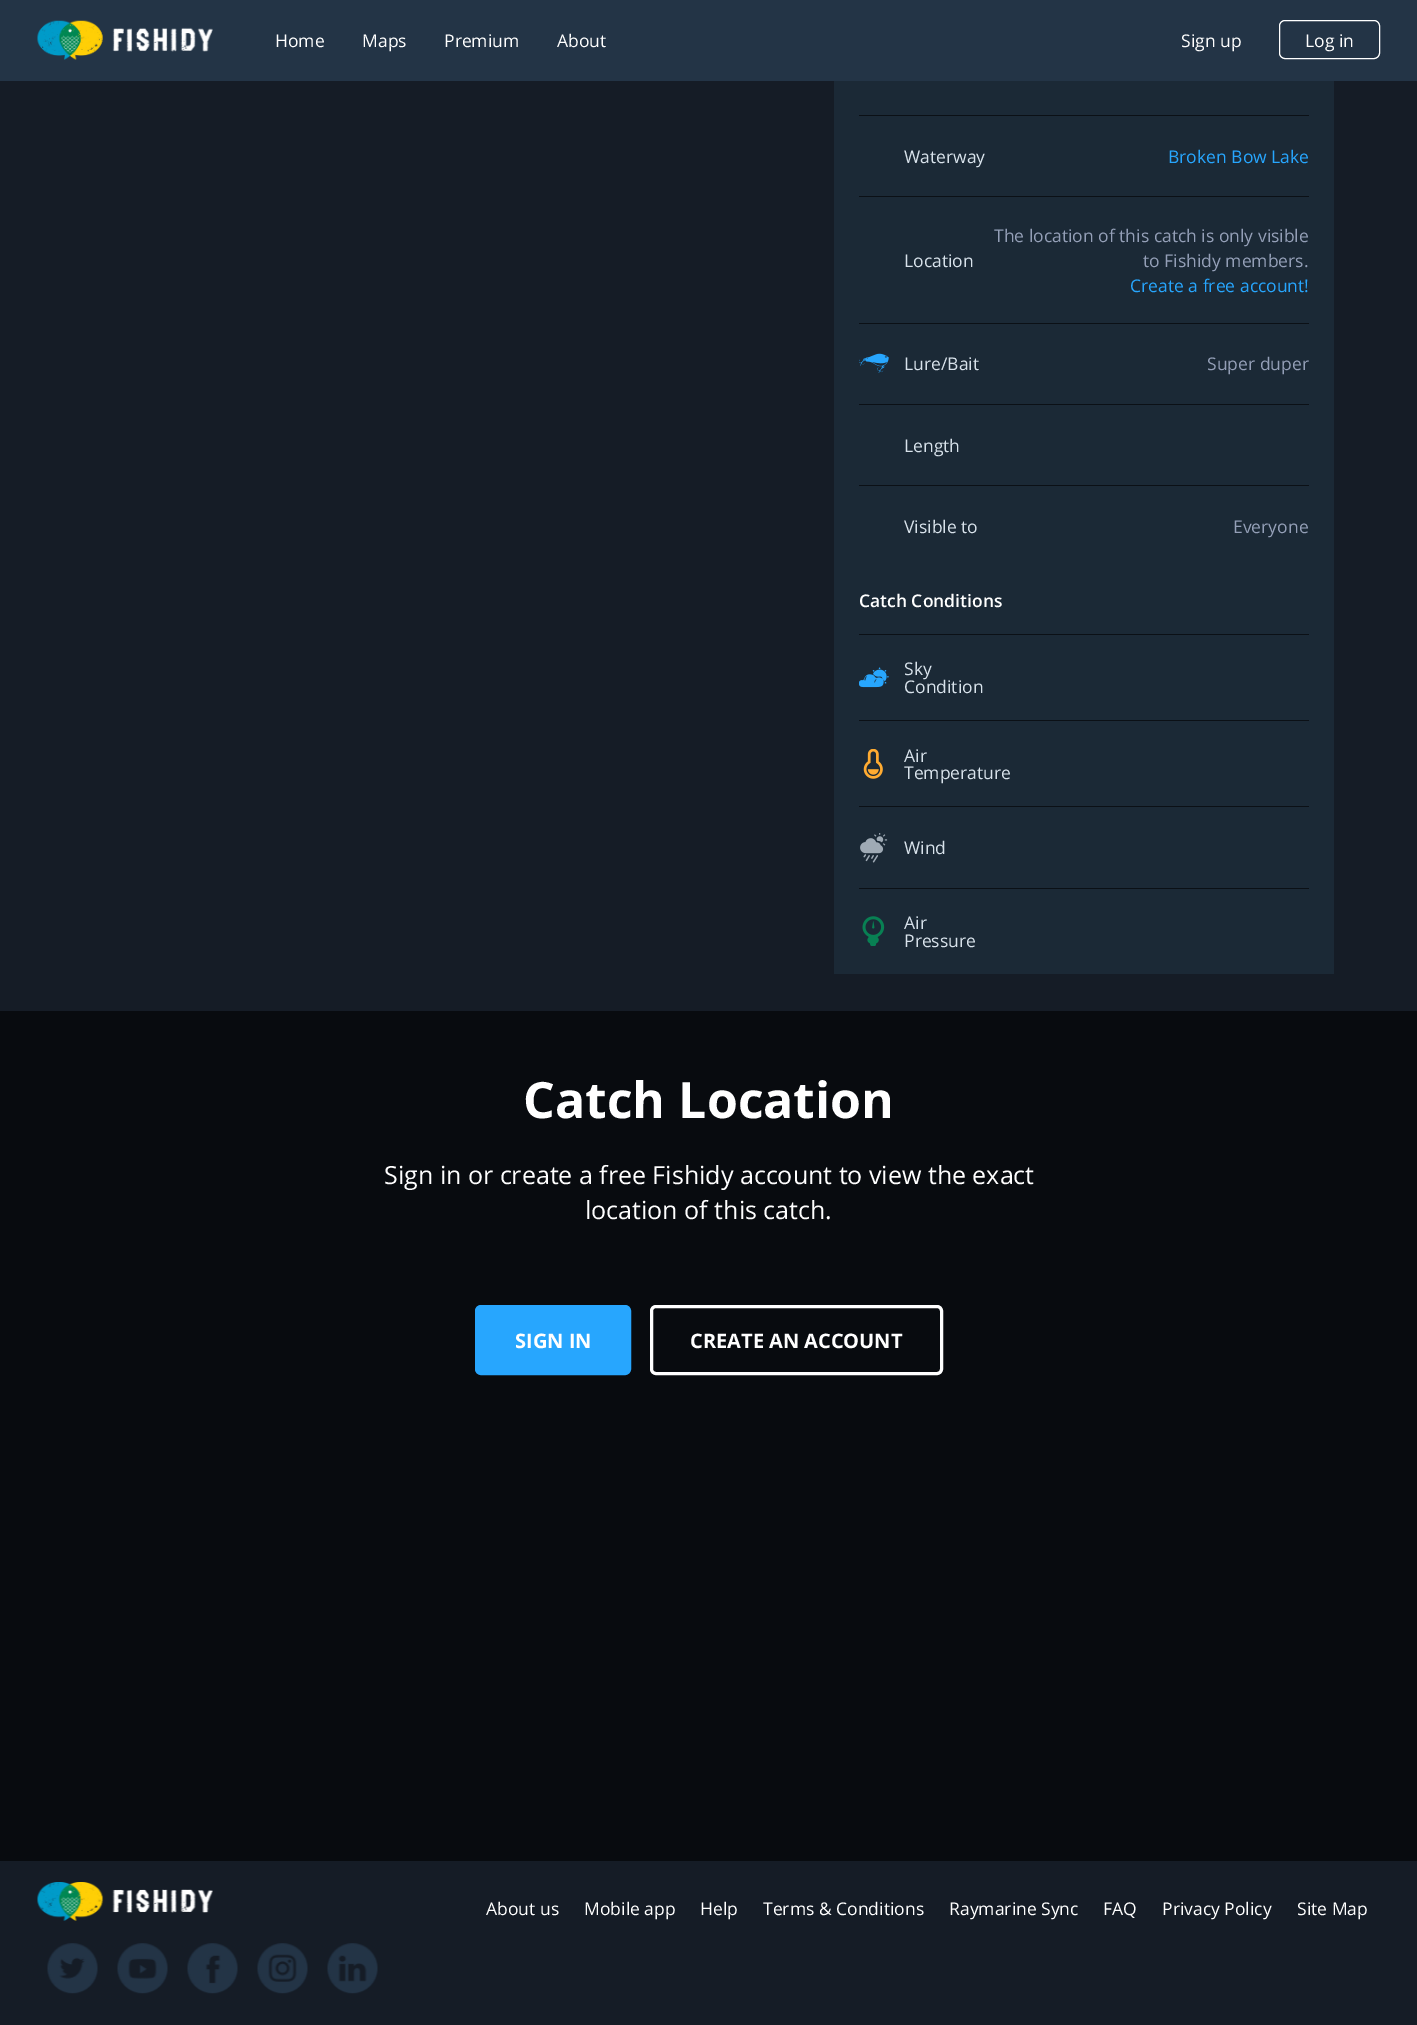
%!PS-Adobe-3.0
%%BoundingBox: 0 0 1417 2025
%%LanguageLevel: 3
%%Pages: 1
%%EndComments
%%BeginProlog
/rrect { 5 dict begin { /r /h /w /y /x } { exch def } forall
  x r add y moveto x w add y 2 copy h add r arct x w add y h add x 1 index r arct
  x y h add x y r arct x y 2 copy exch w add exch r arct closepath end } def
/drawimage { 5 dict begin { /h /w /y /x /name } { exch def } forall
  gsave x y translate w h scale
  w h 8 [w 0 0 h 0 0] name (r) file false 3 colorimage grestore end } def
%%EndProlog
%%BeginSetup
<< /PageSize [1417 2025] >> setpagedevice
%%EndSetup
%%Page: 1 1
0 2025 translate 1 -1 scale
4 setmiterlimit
0.082 0.11 0.149 setrgbcolor
0 0 1417 2025 rectfill
0.137 0.204 0.275 setrgbcolor
0 0 1417 81 rectfill
(images/1.raw) 37 20 176 40 drawimage
1 setgray
1279.5 20.5 100 38 5.5 rrect stroke
0.106 0.161 0.212 setrgbcolor
834 81 500 893 rectfill
0.043 0.063 0.086 setrgbcolor
859 115 450 1 rectfill
859 196 450 1 rectfill
859 323 450 1 rectfill
(images/2.raw) 859 353 30 20 drawimage
859 404 450 1 rectfill
859 485 450 1 rectfill
859 634 450 1 rectfill
(images/3.raw) 859 667 30 21 drawimage
859 720 450 1 rectfill
(images/4.raw) 863 749 20 30 drawimage
859 806 450 1 rectfill
(images/5.raw) 860 833 28 30 drawimage
859 888 450 1 rectfill
(images/6.raw) 862 916 23 30 drawimage
0.031 0.043 0.059 setrgbcolor
0 1011 1417 850 rectfill
0.153 0.651 0.996 setrgbcolor
476.5 1306.5 153 67 4.5 rrect gsave fill grestore
3 setlinewidth
stroke
1 setgray
651.5 1306.5 290 67 4.5 rrect stroke
(images/7.raw) 37 1882 176 39 drawimage
(images/8.raw) 47 1943 51 51 drawimage
(images/9.raw) 117 1943 51 51 drawimage
(images/10.raw) 187 1943 51 51 drawimage
(images/11.raw) 257 1943 51 51 drawimage
(images/12.raw) 327 1943 51 51 drawimage
/OpenSans-Regular [17.5 0 0 -17.5 0 0] selectfont
275 47 moveto (Home) show
362 47 moveto (Maps) show
444 47 moveto (Premium) show
557 47 moveto (About) show
1181 47 moveto (Sign up) show
1305 47 moveto (Log in) show
0.847 0.886 0.922 setrgbcolor
904 163 moveto (Waterway) show
0.153 0.651 0.996 setrgbcolor
1168 163 moveto (Broken Bow Lake) show
0.847 0.886 0.922 setrgbcolor
904 267 moveto (Location) show
0.58 0.624 0.718 setrgbcolor
994 242 moveto (The location of this catch is only visible) show
1143 267 moveto (to Fishidy members.) show
0.153 0.651 0.996 setrgbcolor
1130 292 moveto (Create a free account!) show
0.847 0.886 0.922 setrgbcolor
904 370 moveto (Lure/Bait) show
0.58 0.624 0.718 setrgbcolor
1207 370 moveto (Super duper) show
0.847 0.886 0.922 setrgbcolor
904 452 moveto (Length) show
904 533 moveto (Visible to) show
0.58 0.624 0.718 setrgbcolor
1233 533 moveto (Everyone) show
/OpenSans-SemiBold [17.5 0 0 -17.5 0 0] selectfont
1 setgray
859 607 moveto (Catch Conditions) show
/OpenSans-Regular [17.5 0 0 -17.5 0 0] selectfont
0.847 0.886 0.922 setrgbcolor
904 675 moveto (Sky) show
904 693 moveto (Condition) show
904 762 moveto (Air) show
904 779 moveto (Temperature) show
904 854 moveto (Wind) show
904 929 moveto (Air) show
904 947 moveto (Pressure) show
/OpenSans-Bold [50 0 0 -50 0 0] selectfont
1 setgray
523 1118 moveto (Catch Location) show
/OpenSans-Regular [25 0 0 -25 0 0] selectfont
384 1184 moveto (Sign in or create a free Fishidy account to view the exact) show
585 1219 moveto (location of this catch.) show
/OpenSans-Bold [20 0 0 -20 0 0] selectfont
515 1348 moveto (SIGN IN) show
690 1348 moveto (CREATE AN ACCOUNT) show
/OpenSans-Regular [17.5 0 0 -17.5 0 0] selectfont
486 1915 moveto (About us) show
584 1915 moveto (Mobile app) show
700 1915 moveto (Help) show
763 1915 moveto (Terms & Conditions) show
949 1915 moveto (Raymarine Sync) show
1103 1915 moveto (FAQ) show
1162 1915 moveto (Privacy Policy) show
1297 1915 moveto (Site Map) show
showpage
%%EOF
